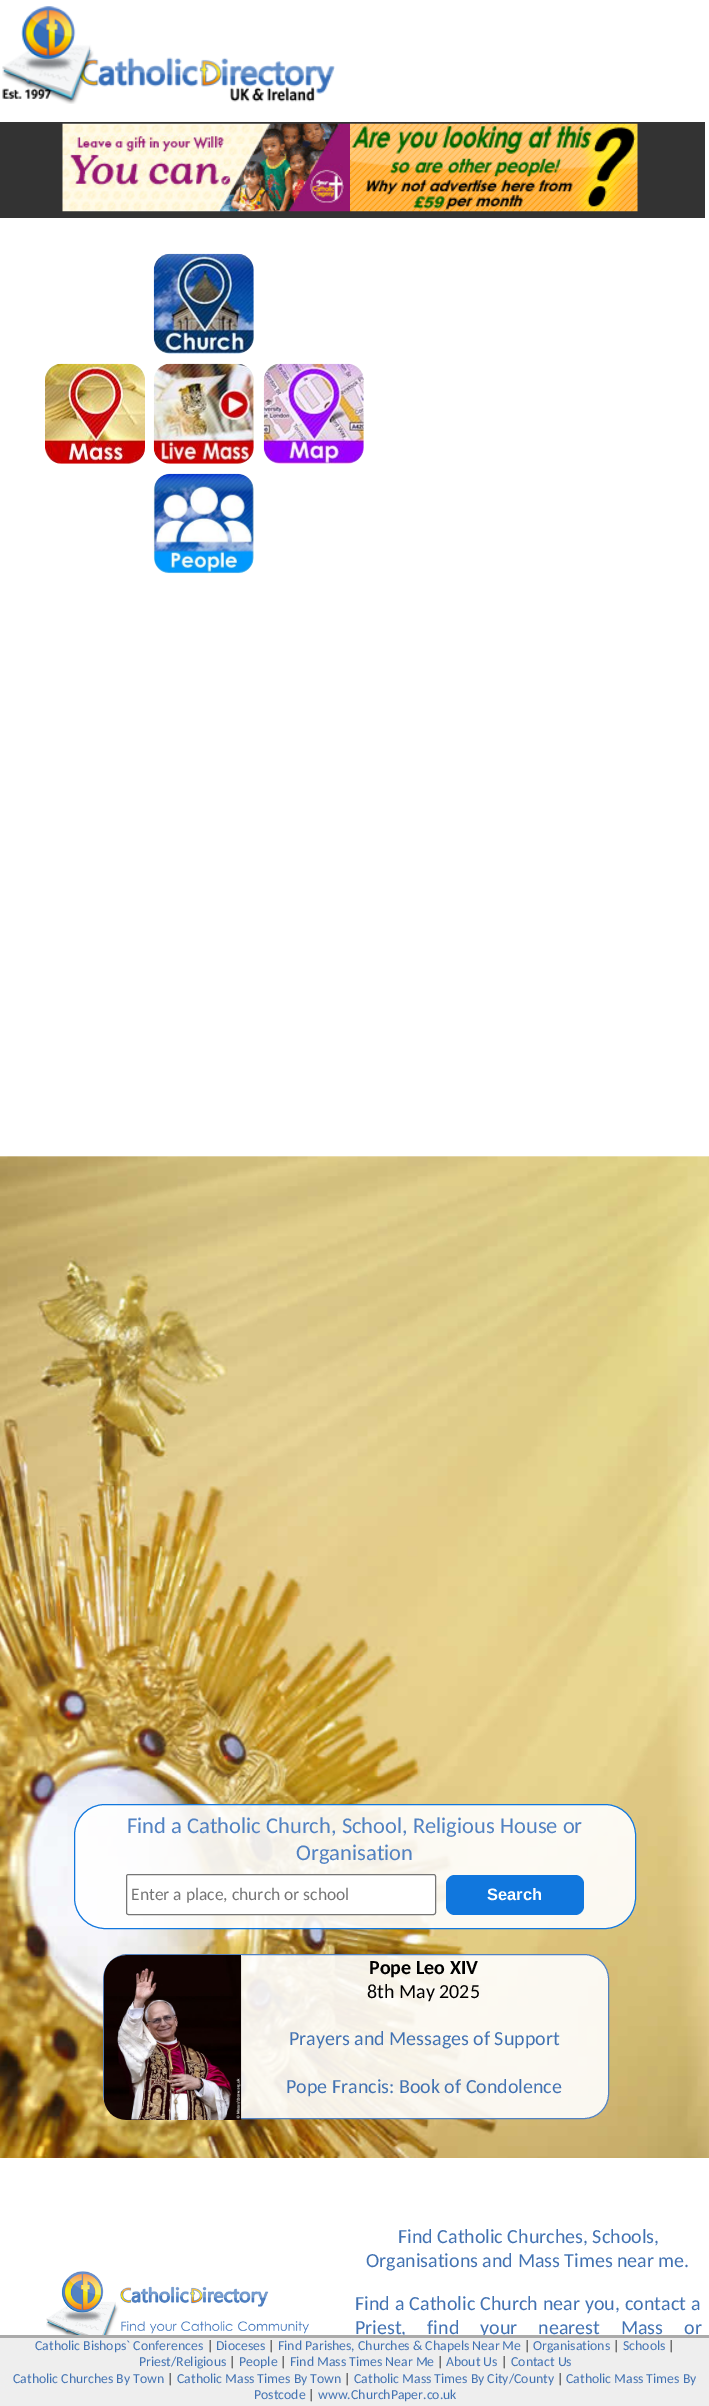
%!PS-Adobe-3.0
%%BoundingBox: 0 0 709 2406
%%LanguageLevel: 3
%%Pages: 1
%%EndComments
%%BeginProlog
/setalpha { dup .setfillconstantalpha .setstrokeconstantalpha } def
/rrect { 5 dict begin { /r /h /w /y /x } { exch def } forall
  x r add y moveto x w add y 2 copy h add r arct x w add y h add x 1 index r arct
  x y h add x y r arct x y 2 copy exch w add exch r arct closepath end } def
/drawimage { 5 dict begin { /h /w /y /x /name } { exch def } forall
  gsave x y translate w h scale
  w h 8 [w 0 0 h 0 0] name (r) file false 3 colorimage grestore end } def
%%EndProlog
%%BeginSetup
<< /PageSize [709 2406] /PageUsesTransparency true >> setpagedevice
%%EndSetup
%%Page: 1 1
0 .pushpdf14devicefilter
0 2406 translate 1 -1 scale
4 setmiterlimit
1 setgray
0 0 709 2406 rectfill
(images/1.raw) 2 6 333 98 drawimage
(images/2.raw) 0 1156 709 1002 drawimage
0.2 setgray
0 122 705 96 rectfill
(images/3.raw) 62 123 288 89 drawimage
(images/4.raw) 350 123 288 89 drawimage
(images/5.raw) 153 253 101 101 drawimage
(images/6.raw) 45 363 100 101 drawimage
(images/7.raw) 153 363 101 101 drawimage
(images/8.raw) 263 363 101 101 drawimage
(images/9.raw) 153 473 101 101 drawimage
0.9 setalpha
1 setgray
74.5 1804.5 561 124 30.5 rrect fill
1 setalpha
0.067 0.467 0.867 setrgbcolor
74.5 1804.5 561 124 30.5 rrect stroke
1 setgray
126.5 1874.5 309 40 2 rrect gsave fill grestore
0.463 setgray
stroke
0.067 0.467 0.867 setrgbcolor
446 1875 138 40 9 rrect fill
0.9 setalpha
1 setgray
103.5 1954.5 505 164 24.5 rrect fill
1 setalpha
0.322 0.51 0.761 setrgbcolor
103.5 1954.5 505 164 24.5 rrect stroke
(images/10.raw) 103 1955 139 165 drawimage
(images/11.raw) 46 2271 263 64 drawimage
0.933 setgray
0 2338 709 68 rectfill
/Carlito-Regular [22.5 0 0 -22.5 0 0] selectfont
0.322 0.51 0.761 setrgbcolor
127 1833 moveto (Find a Catholic Church, School, Religious House or) show
296 1860 moveto (Organisation) show
/Carlito-Regular [17.5 0 0 -17.5 0 0] selectfont
0.459 setgray
131 1900 moveto (Enter a place, church or school) show
/LiberationSans-Bold [16.5 0 0 -16.5 0 0] selectfont
1 setgray
487 1900 moveto (Search) show
/Carlito-Bold [20 0 0 -20 0 0] selectfont
0 setgray
369 1974 moveto (Pope Leo XIV) show
/Carlito-Regular [20 0 0 -20 0 0] selectfont
367 1998 moveto (8th May 2025) show
0.259 0.447 0.698 setrgbcolor
289 2045 moveto (Prayers and Messages of Support) show
286 2093 moveto (Pope Francis: Book of Condolence) show
398 2243 moveto (Find Catholic Churches, Schools,) show
366 2267 moveto (Organisations and Mass Times near me.) show
355 2310 moveto 0.5 0 32 (Find a Catholic Church near you, contact a) widthshow
355 2334 moveto 16.5 0 32 (Priest, find your nearest Mass or) widthshow
0.667 setgray
0 2335 709 3 rectfill
/Carlito-Regular [13.75 0 0 -13.75 0 0] selectfont
0.259 0.447 0.698 setrgbcolor
35 2350 moveto (Catholic Bishops` Conferences) show
0 setgray
207 2350 moveto (|) show
0.259 0.447 0.698 setrgbcolor
216 2350 moveto (Dioceses) show
0 setgray
268 2350 moveto (|) show
0.259 0.447 0.698 setrgbcolor
278 2350 moveto (Find Parishes, Churches & Chapels Near Me) show
0 setgray
524 2350 moveto (|) show
0.259 0.447 0.698 setrgbcolor
533 2350 moveto (Organisations) show
0 setgray
613 2350 moveto (|) show
0.259 0.447 0.698 setrgbcolor
623 2350 moveto (Schools) show
0 setgray
668 2350 moveto (|) show
0.259 0.447 0.698 setrgbcolor
139 2366 moveto (Priest/Religious) show
0 setgray
229 2366 moveto (|) show
0.259 0.447 0.698 setrgbcolor
239 2366 moveto (People) show
0 setgray
280 2366 moveto (|) show
0.259 0.447 0.698 setrgbcolor
290 2366 moveto (Find Mass Times Near Me) show
0 setgray
437 2366 moveto (|) show
0.259 0.447 0.698 setrgbcolor
446 2366 moveto (About Us) show
0 setgray
501 2366 moveto (|) show
0.259 0.447 0.698 setrgbcolor
511 2366 moveto (Contact Us) show
13 2383 moveto (Catholic Churches By Town) show
0 setgray
167 2383 moveto (|) show
0.259 0.447 0.698 setrgbcolor
177 2383 moveto (Catholic Mass Times By Town) show
0 setgray
344 2383 moveto (|) show
0.259 0.447 0.698 setrgbcolor
354 2383 moveto (Catholic Mass Times By City/County) show
0 setgray
557 2383 moveto (|) show
0.259 0.447 0.698 setrgbcolor
566 2383 moveto (Catholic Mass Times By) show
254 2399 moveto (Postcode) show
0 setgray
308 2399 moveto (|) show
0.259 0.447 0.698 setrgbcolor
318 2399 moveto (www.ChurchPaper.co.uk) show
.poppdf14devicefilter showpage
%%EOF
